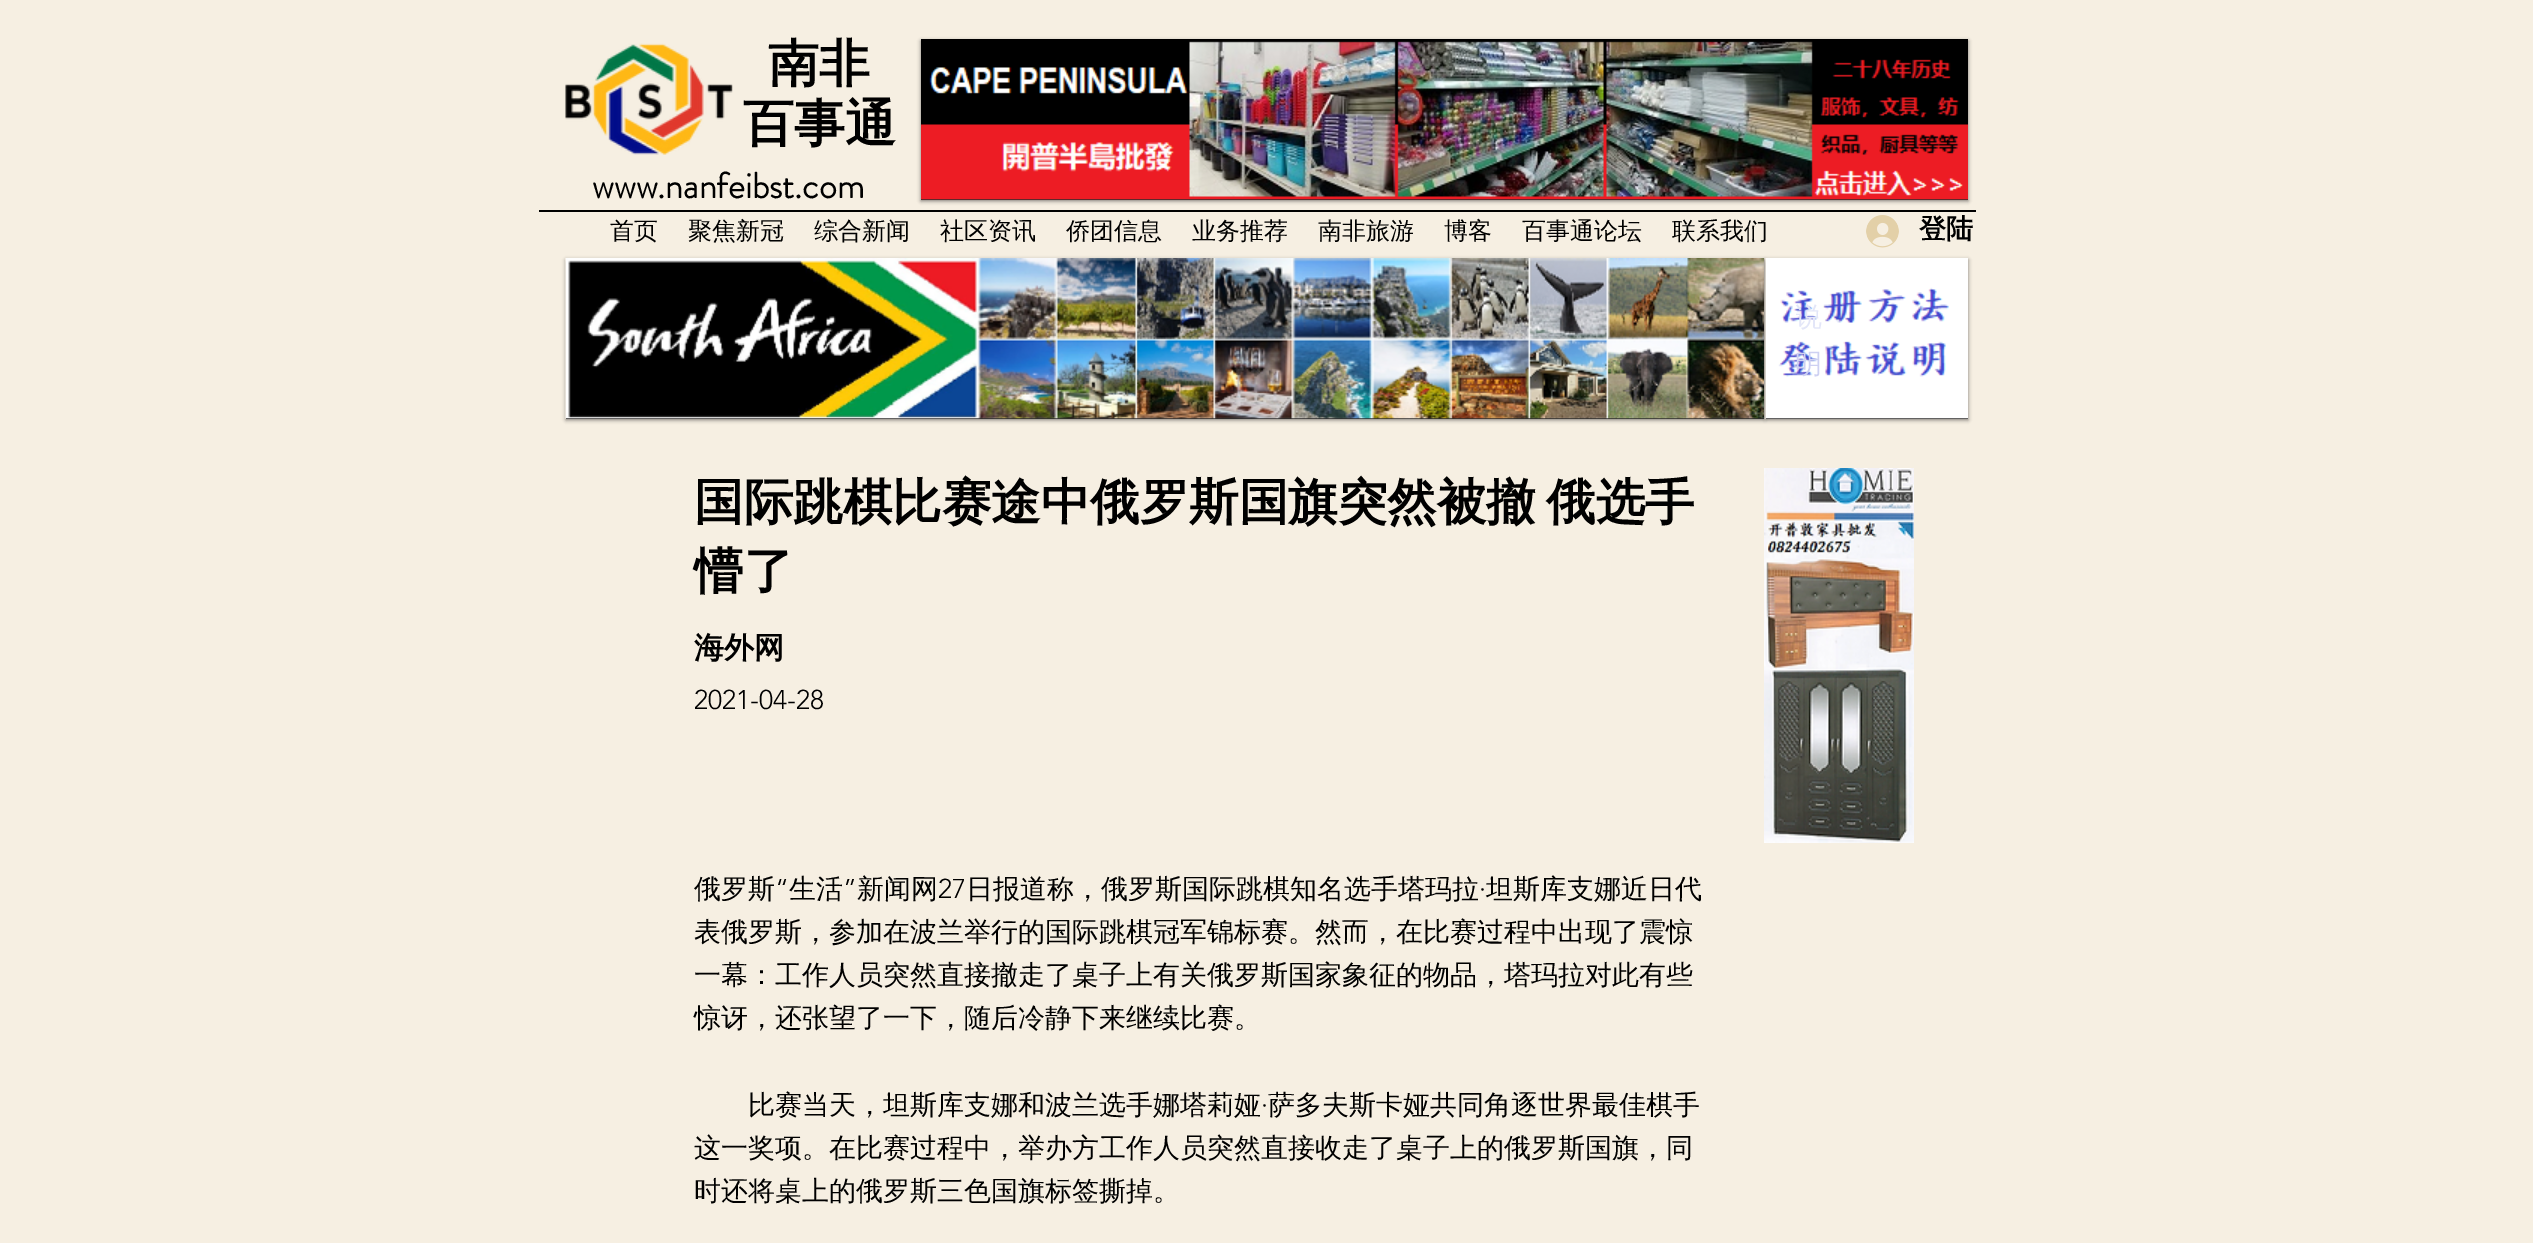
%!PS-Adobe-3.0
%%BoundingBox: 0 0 2533 1243
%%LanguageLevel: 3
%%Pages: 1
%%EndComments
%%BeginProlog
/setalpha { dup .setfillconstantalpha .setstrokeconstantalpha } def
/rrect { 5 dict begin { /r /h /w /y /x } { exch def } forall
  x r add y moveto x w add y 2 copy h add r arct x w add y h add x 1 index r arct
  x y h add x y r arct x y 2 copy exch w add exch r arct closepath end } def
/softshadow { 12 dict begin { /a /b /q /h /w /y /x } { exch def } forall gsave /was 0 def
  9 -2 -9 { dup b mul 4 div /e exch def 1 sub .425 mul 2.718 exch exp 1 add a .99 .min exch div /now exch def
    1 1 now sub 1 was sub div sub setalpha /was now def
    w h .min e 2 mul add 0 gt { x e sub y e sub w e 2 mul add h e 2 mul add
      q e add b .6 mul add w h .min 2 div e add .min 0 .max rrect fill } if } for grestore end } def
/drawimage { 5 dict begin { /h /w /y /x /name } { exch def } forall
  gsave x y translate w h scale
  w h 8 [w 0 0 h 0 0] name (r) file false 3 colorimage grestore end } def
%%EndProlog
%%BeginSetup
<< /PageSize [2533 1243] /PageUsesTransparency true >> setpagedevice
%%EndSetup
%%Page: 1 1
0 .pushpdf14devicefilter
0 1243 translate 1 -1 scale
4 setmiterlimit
0.965 0.937 0.886 setrgbcolor
0 0 2533 1243 rectfill
(images/1.raw) 565 43 168 112 drawimage
0 setgray
921 41 1047 160 0 2 0.5 softshadow
0.184 0.18 0.18 setrgbcolor
921 199 1047 1 rectfill
(images/2.raw) 921 39 1047 161 drawimage
0 setgray
539 210 1437 2 rectfill
(images/3.raw) 1866 215 33 33 drawimage
566 260 1198 160 0 2 0.5 softshadow
0.184 0.18 0.18 setrgbcolor
566 418 1198 1 rectfill
(images/4.raw) 565 258 1199 161 drawimage
0 setgray
1766 260 202 160 0 2 0.5 softshadow
0.184 0.18 0.18 setrgbcolor
1766 418 202 1 rectfill
(images/5.raw) 1765 258 203 161 drawimage
(images/6.raw) 1764 468 150 375 drawimage
/WenQuanYiZenHei-Bold [51 0 0 -51 0 0] selectfont
0 setgray
768 81 moveto (南非) show
743 141 moveto (百事通) show
/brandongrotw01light-Bold [36 0 0 -36 0 0] selectfont
592 198 moveto (www.nanfeibst.com) show
/WenQuanYiZenHei-Medium [24 0 0 -24 0 0] selectfont
610 239 moveto (首页) show
688 239 moveto (聚焦新冠) show
814 239 moveto (综合新闻) show
940 239 moveto (社区资讯) show
1066 239 moveto (侨团信息) show
1192 239 moveto (业务推荐) show
1318 239 moveto (南非旅游) show
1444 239 moveto (博客) show
1522 239 moveto (百事通论坛) show
1672 239 moveto (联系我们) show
/WenQuanYiZenHei-Bold [27 0 0 -27 0 0] selectfont
1919 238 moveto (登陆) show
gsave
1796 258 27 131 rectclip
/WenQuanYiZenHei-Medium [27 0 0 -27 0 0] selectfont
0.89 0.902 0.973 setrgbcolor
1795 326 moveto (说) show
grestore
/WenQuanYiZenHei-Medium [27 0 0 -27 0 0] selectfont
0.808 0.82 0.949 setrgbcolor
1795 373 moveto (明) show
/WenQuanYiZenHei-Bold [49.5 0 0 -49.5 0 0] selectfont
0 setgray
694 519 moveto -4 0 32 (国际跳棋比赛途中俄罗斯国旗突然被撤 俄选手) widthshow
694 588 moveto (懵了) show
/WenQuanYiZenHei-Bold [30 0 0 -30 0 0] selectfont
694 658 moveto (海外网) show
/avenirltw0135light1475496-Light [27 0 0 -27 0 0] selectfont
694 709 moveto (2021-04-28) show
/WenQuanYiZenHei-Medium [27 0 0 -27 0 0] selectfont
694 898 moveto (俄罗斯) show
/avenirltw0135light1475496-Light [27 0 0 -27 0 0] selectfont
775 898 moveto (“) show
/WenQuanYiZenHei-Medium [27 0 0 -27 0 0] selectfont
789 898 moveto (生活) show
/avenirltw0135light1475496-Light [27 0 0 -27 0 0] selectfont
843 898 moveto (”) show
/WenQuanYiZenHei-Medium [27 0 0 -27 0 0] selectfont
857 898 moveto (新闻网) show
/avenirltw0135light1475496-Light [27 0 0 -27 0 0] selectfont
938 898 moveto (27) show
/WenQuanYiZenHei-Medium [27 0 0 -27 0 0] selectfont
966 898 moveto (日报道称，俄罗斯国际跳棋知名选手塔玛拉) show
/avenirltw0135light1475496-Light [27 0 0 -27 0 0] selectfont
1479 898 moveto (·) show
/WenQuanYiZenHei-Medium [27 0 0 -27 0 0] selectfont
1486 898 moveto (坦斯库支娜近日代) show
694 941 moveto (表俄罗斯，参加在波兰举行的国际跳棋冠军锦标赛。然而，在比赛过程中出现了震惊) show
694 984 moveto (一幕：工作人员突然直接撤走了桌子上有关俄罗斯国家象征的物品，塔玛拉对此有些) show
694 1027 moveto (惊讶，还张望了一下，随后冷静下来继续比赛。) show
748 1114 moveto (比赛当天，坦斯库支娜和波兰选手娜塔莉娅) show
/avenirltw0135light1475496-Light [27 0 0 -27 0 0] selectfont
1261 1114 moveto (·) show
/WenQuanYiZenHei-Medium [27 0 0 -27 0 0] selectfont
1268 1114 moveto (萨多夫斯卡娅共同角逐世界最佳棋手) show
694 1157 moveto (这一奖项。在比赛过程中，举办方工作人员突然直接收走了桌子上的俄罗斯国旗，同) show
694 1200 moveto (时还将桌上的俄罗斯三色国旗标签撕掉。) show
.poppdf14devicefilter showpage
%%EOF
